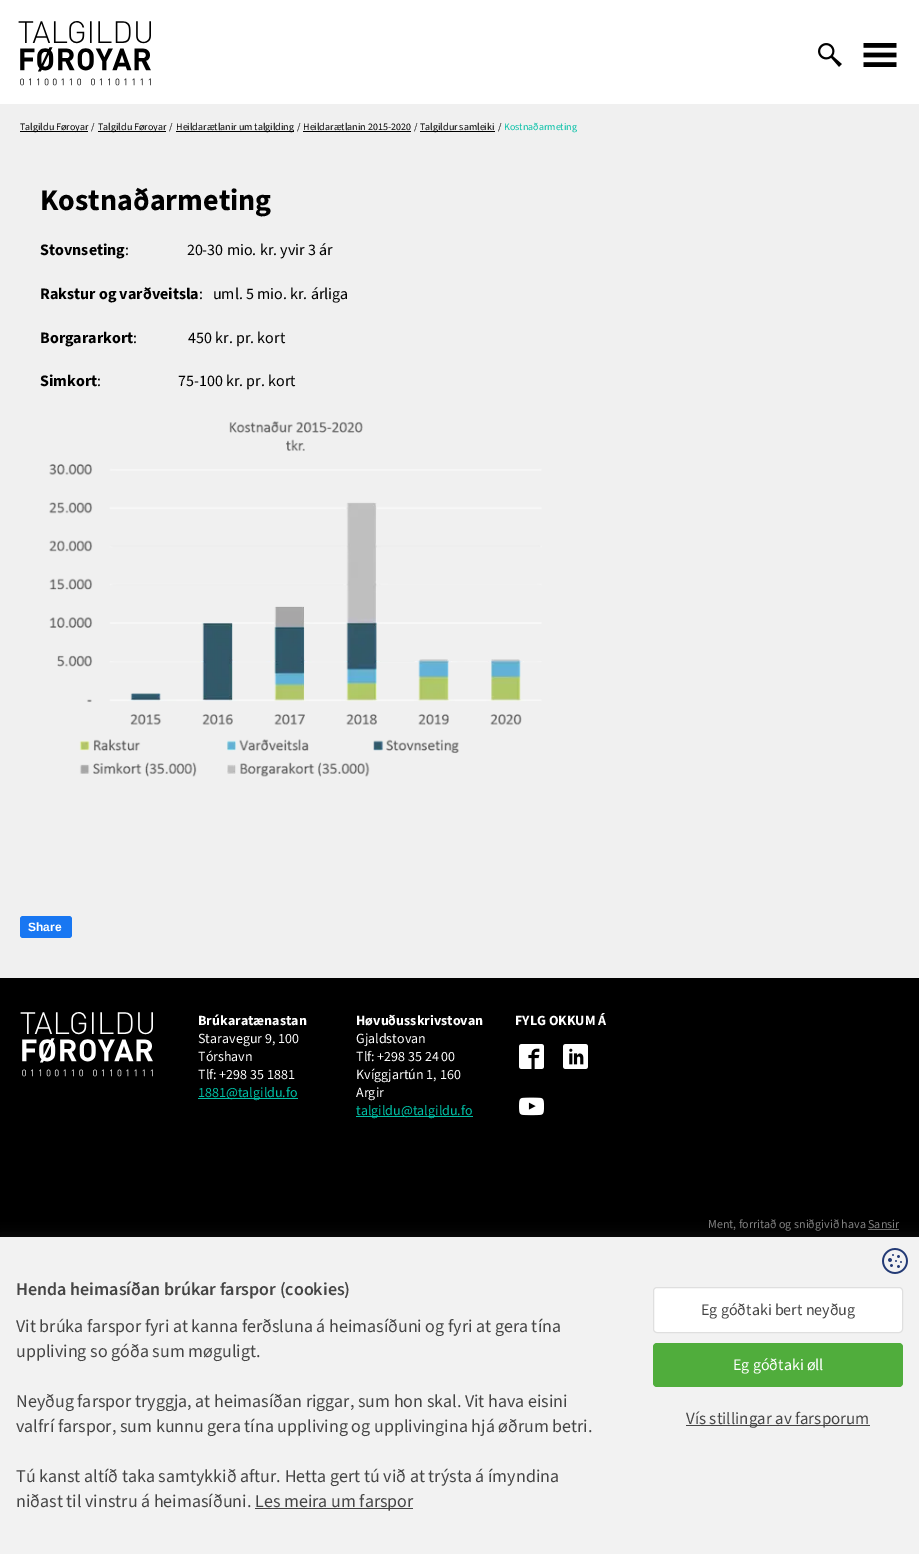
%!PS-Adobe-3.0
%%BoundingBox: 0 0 919 1554
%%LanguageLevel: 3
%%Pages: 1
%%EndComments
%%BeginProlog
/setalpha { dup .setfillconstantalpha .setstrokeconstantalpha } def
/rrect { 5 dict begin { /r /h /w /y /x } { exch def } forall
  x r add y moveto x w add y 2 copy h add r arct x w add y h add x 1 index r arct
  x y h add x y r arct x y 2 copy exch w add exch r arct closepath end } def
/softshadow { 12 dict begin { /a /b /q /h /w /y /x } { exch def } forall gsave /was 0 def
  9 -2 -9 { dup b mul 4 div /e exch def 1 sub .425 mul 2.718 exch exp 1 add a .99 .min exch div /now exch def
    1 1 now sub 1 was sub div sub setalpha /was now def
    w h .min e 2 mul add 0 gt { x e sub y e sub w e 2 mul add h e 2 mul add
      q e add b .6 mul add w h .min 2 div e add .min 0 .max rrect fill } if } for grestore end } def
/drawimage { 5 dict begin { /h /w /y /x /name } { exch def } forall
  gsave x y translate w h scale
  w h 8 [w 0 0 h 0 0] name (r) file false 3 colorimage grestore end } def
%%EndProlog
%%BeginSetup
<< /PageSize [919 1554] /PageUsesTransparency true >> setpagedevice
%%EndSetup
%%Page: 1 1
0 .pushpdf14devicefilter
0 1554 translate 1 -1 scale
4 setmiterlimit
0.941 setgray
0 0 919 1554 rectfill
1 setgray
0 0 919 104 rectfill
(images/1.raw) 18 21 133 65 drawimage
(images/2.raw) 818 43 24 24 drawimage
(images/3.raw) 863 43 34 24 drawimage
0 setgray
20 131 68 1 rectfill
98 131 68 1 rectfill
176 131 118 1 rectfill
303 131 108 1 rectfill
420 131 75 1 rectfill
(images/4.raw) 49 421 493 356 drawimage
0.094 0.467 0.949 setrgbcolor
20 916 52 22 3 rrect fill
0 setgray
0 978 919 259 rectfill
(images/5.raw) 20 1012 133 65 drawimage
0 0.749 0.647 setrgbcolor
198 1098 100 1 rectfill
356 1116 117 1 rectfill
(images/6.raw) 519 1044 25 25 drawimage
(images/7.raw) 563 1044 25 25 drawimage
(images/8.raw) 519 1097 25 19 drawimage
0.502 setgray
868 1229 31 1 rectfill
0.071 setgray
0 1237 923 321 0 7 1 softshadow
0.949 setgray
0 1237 919 317 rectfill
(images/9.raw) 882 1248 26 26 drawimage
0.271 setgray
255 1508 158 1 rectfill
1 setgray
653.5 1287.5 249 45 3.5 rrect gsave fill grestore
0.875 setgray
stroke
0.314 0.678 0.235 setrgbcolor
653 1343 250 44 4 rrect fill
0.271 setgray
686 1425 184 1 rectfill
/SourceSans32-ExtraLight [10 0 0 -10 0 0] selectfont
0 setgray
20 130 moveto (Talgildu Føroyar) show
91 130 moveto (/) show
98 130 moveto (Talgildu Føroyar) show
169 130 moveto (/) show
176 130 moveto (Heildarætlanir um talgilding) show
297 130 moveto (/) show
303 130 moveto (Heildarætlanin 2015-2020) show
414 130 moveto (/) show
420 130 moveto (Talgildur samleiki) show
498 130 moveto (/) show
0 0.749 0.647 setrgbcolor
504 130 moveto (Kostnaðarmeting) show
/SourceSans3-ExtraLight [30 0 0 -30 0 0] selectfont
0 setgray
40 210 moveto (Kostnaðarmeting) show
/SourceSans3-ExtraLight [16 0 0 -16 0 0] selectfont
40 255 moveto (Stovnseting) show
/SourceSans32-ExtraLight [16 0 0 -16 0 0] selectfont
125 255 moveto (:                  20-30 mio. kr. yvir 3 ár) show
/SourceSans3-ExtraLight [16 0 0 -16 0 0] selectfont
40 299 moveto (Rakstur og varðveitsla) show
/SourceSans32-ExtraLight [16 0 0 -16 0 0] selectfont
199 299 moveto (:   uml. 5 mio. kr. árliga) show
/SourceSans3-ExtraLight [16 0 0 -16 0 0] selectfont
40 343 moveto (Borgararkort) show
/SourceSans32-ExtraLight [16 0 0 -16 0 0] selectfont
133 343 moveto (:                450 kr. pr. kort) show
/SourceSans3-ExtraLight [16 0 0 -16 0 0] selectfont
40 386 moveto (Simkort) show
/SourceSans32-ExtraLight [16 0 0 -16 0 0] selectfont
97 386 moveto (:                        75-100 kr. pr. kort) show
/LiberationSans-Bold [12 0 0 -12 0 0] selectfont
1 setgray
28 931 moveto (Share) show
/SourceSans3-ExtraLight [14 0 0 -14 0 0] selectfont
198 1025 moveto (Brúkaratænastan) show
/SourceSans32-ExtraLight [14 0 0 -14 0 0] selectfont
198 1043 moveto (Staravegur 9, 100) show
198 1061 moveto (Tórshavn) show
198 1079 moveto (Tlf: +298 35 1881) show
0 0.749 0.647 setrgbcolor
198 1097 moveto (1881@talgildu.fo) show
/SourceSans3-ExtraLight [14 0 0 -14 0 0] selectfont
1 setgray
356 1025 moveto (Høvuðusskrivstovan) show
/SourceSans32-ExtraLight [14 0 0 -14 0 0] selectfont
356 1043 moveto (Gjaldstovan) show
356 1061 moveto (Tlf: +298 35 24 00) show
356 1079 moveto (Kvíggjartún 1, 160) show
356 1097 moveto (Argir) show
0 0.749 0.647 setrgbcolor
356 1115 moveto (talgildu@talgildu.fo) show
/SourceSans3-ExtraLight [14 0 0 -14 0 0] selectfont
1 setgray
515 1025 moveto (FYLG OKKUM Á) show
/SourceSans32-ExtraLight [12 0 0 -12 0 0] selectfont
0.502 setgray
708 1228 moveto (Ment, forritað og sniðgivið hava Sansir) show
/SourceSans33-ExtraLight [18 0 0 -18 0 0] selectfont
0.271 setgray
16 1295 moveto (Henda heimasíðan brúkar farspor \(cookies\)) show
/SourceSans32-ExtraLight [18 0 0 -18 0 0] selectfont
16 1332 moveto (Vit brúka farspor fyri at kanna ferðsluna á heimasíðuni og fyri at gera tína) show
16 1357 moveto (uppliving so góða sum møguligt.) show
16 1407 moveto (Neyðug farspor tryggja, at heimasíðan riggar, sum hon skal. Vit hava eisini) show
16 1432 moveto (valfrí farspor, sum kunnu gera tína uppliving og upplivingina hjá øðrum betri.) show
16 1482 moveto (Tú kanst altíð taka samtykkið aftur. Hetta gert tú við at trýsta á ímyndina) show
16 1507 moveto (niðast til vinstru á heimasíðuni.) show
255 1507 moveto (Les meira um farspor) show
/SourceSans32-ExtraLight [16 0 0 -16 0 0] selectfont
701 1315 moveto (Eg góðtaki bert neyðug) show
1 setgray
733 1370 moveto (Eg góðtaki øll) show
/SourceSans32-ExtraLight [17 0 0 -17 0 0] selectfont
0.271 setgray
686 1424 moveto (Vís stillingar av farsporum) show
.poppdf14devicefilter showpage
%%EOF
